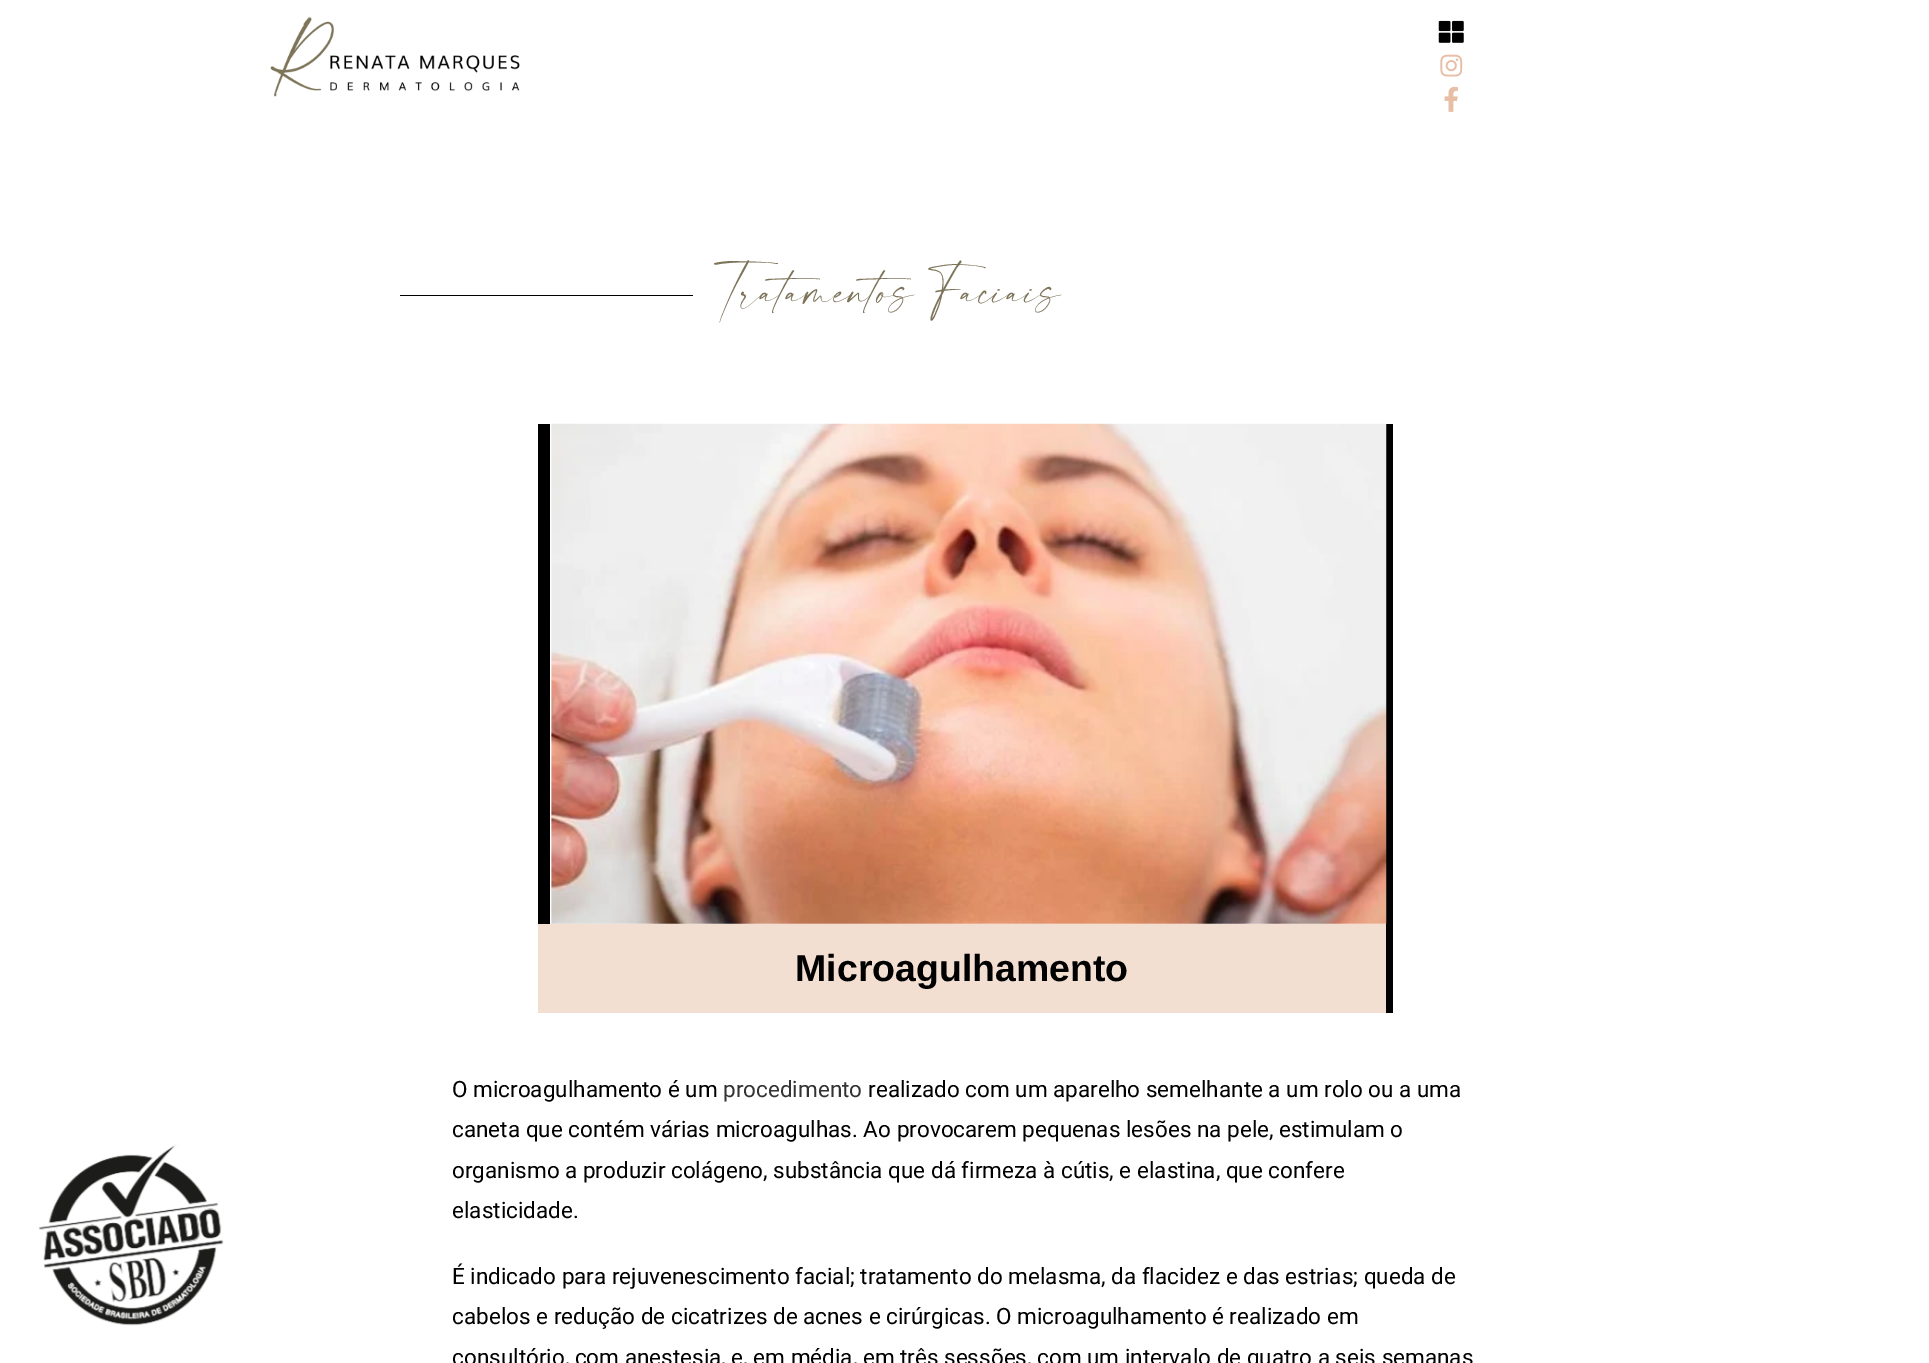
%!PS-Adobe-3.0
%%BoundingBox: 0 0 1929 1363
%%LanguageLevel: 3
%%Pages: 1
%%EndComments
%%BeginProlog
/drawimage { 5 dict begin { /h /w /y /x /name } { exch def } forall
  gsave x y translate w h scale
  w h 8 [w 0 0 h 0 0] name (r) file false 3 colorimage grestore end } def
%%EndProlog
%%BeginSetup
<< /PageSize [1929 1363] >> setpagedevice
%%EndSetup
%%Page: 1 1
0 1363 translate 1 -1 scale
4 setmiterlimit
1 setgray
0 0 1929 1363 rectfill
(images/1.raw) 270 17 250 80 drawimage
(images/2.raw) 1438 20 26 23 drawimage
(images/3.raw) 1440 54 23 23 drawimage
(images/4.raw) 1444 86 14 26 drawimage
(images/5.raw) 38 1144 186 182 drawimage
0 setgray
400 295 293 1 rectfill
1386 424 7 589 rectfill
538 424 12 500 rectfill
(images/6.raw) 551 423 836 501 drawimage
0.953 0.871 0.824 setrgbcolor
538 924 848 89 rectfill
/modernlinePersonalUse-Regular [37.5 0 0 -37.5 0 0] selectfont
0.49 0.455 0.349 setrgbcolor
717 306 moveto (Tratamentos Faciais) show
/LiberationSans-Bold [37.5 0 0 -37.5 0 0] selectfont
0 setgray
795 981 moveto (Microagulhamento) show
/Roboto-Regular [22.5 0 0 -22.5 0 0] selectfont
452 1097 moveto (O microagulhamento é um) show
0.2 setgray
723 1097 moveto (procedimento) show
0 setgray
868 1097 moveto (realizado com um aparelho semelhante a um rolo ou a uma) show
452 1137 moveto (caneta que contém várias microagulhas. Ao provocarem pequenas lesões na pele, estimulam o) show
452 1178 moveto (organismo a produzir colágeno, substância que dá firmeza à cútis, e elastina, que confere) show
452 1218 moveto (elasticidade.) show
452 1284 moveto (É indicado para rejuvenescimento facial; tratamento do melasma, da flacidez e das estrias; queda de) show
452 1324 moveto (cabelos e redução de cicatrizes de acnes e cirúrgicas. O microagulhamento é realizado em) show
452 1365 moveto (consultório, com anestesia, e, em média, em três sessões, com um intervalo de quatro a seis semanas) show
showpage
%%EOF
